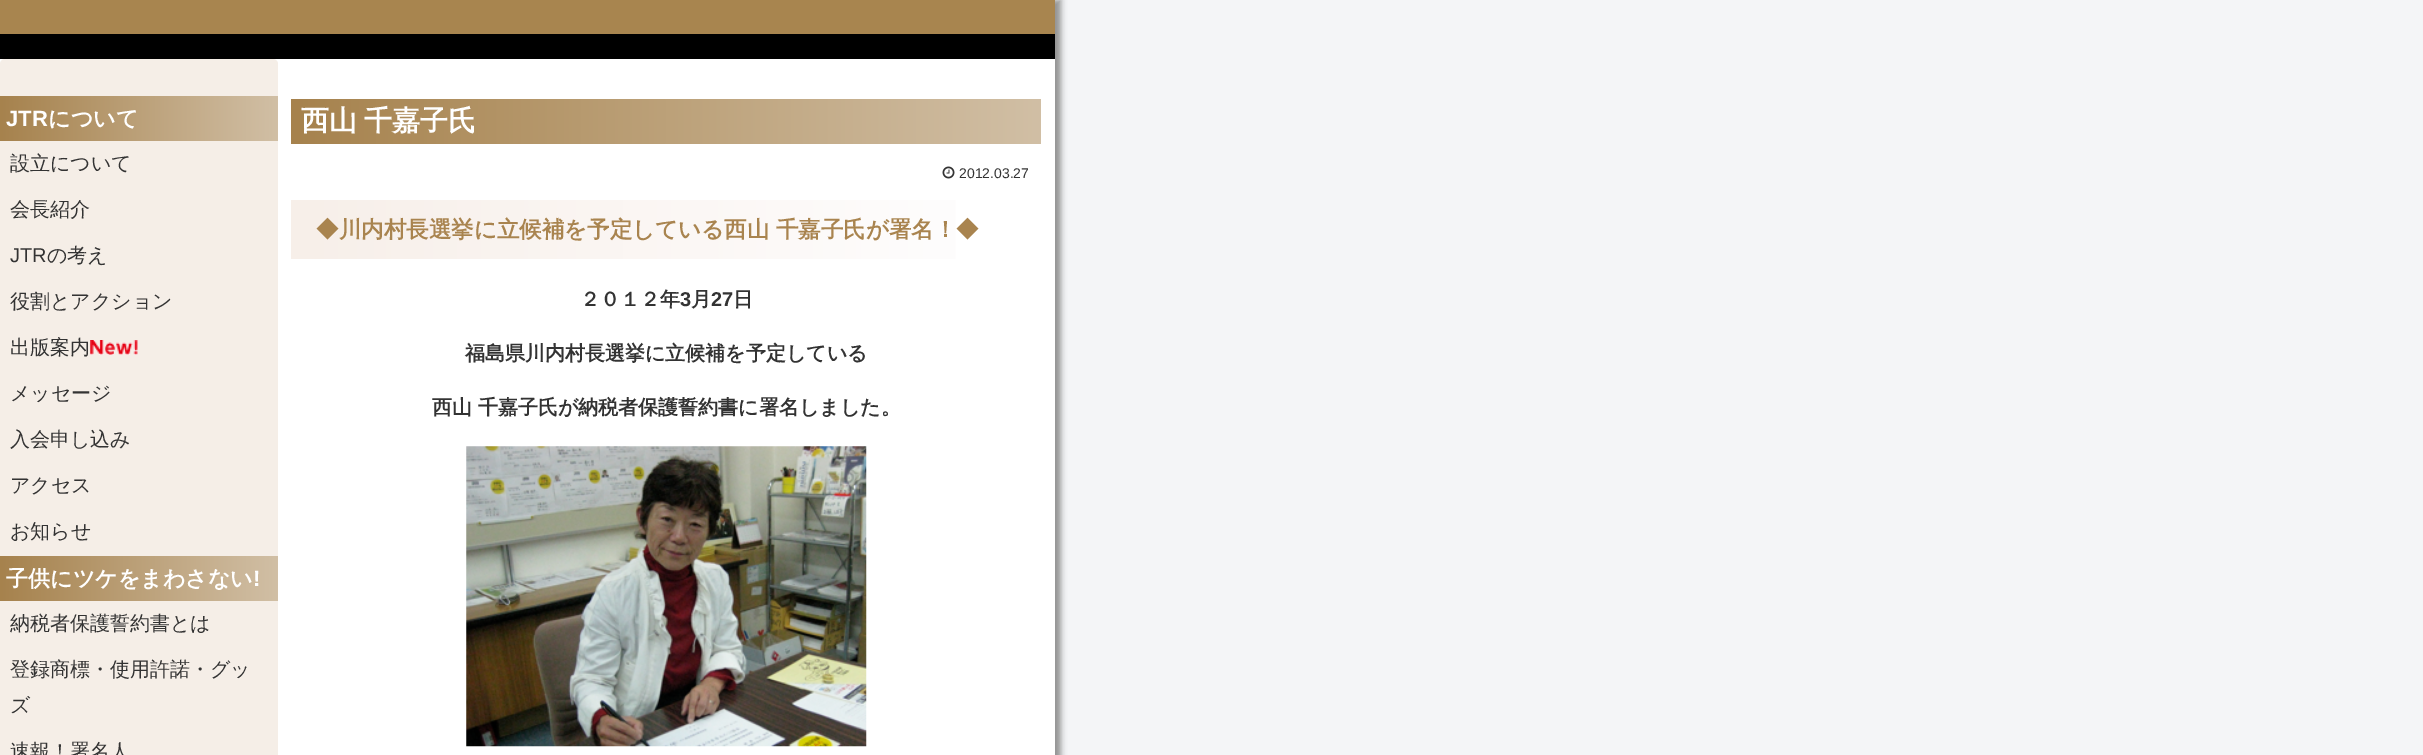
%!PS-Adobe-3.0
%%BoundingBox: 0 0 2423 755
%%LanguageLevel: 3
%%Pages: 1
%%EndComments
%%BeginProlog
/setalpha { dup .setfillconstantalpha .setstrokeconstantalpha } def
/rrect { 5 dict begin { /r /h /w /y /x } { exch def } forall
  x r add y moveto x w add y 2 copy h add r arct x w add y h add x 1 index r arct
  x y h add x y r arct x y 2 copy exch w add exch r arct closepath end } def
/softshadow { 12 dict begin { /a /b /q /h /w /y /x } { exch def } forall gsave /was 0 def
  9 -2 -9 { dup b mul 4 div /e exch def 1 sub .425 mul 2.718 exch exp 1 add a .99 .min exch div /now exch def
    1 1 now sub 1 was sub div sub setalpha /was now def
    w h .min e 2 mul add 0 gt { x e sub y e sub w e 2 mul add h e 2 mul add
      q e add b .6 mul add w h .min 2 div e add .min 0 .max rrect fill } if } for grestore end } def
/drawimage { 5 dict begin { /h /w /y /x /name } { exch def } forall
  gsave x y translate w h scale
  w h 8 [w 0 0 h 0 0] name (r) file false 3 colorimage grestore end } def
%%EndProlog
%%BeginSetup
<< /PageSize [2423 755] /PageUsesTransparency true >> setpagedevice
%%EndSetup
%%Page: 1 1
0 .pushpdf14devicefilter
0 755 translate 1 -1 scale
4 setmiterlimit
0.957 0.961 0.969 setrgbcolor
0 0 2423 755 rectfill
0 setgray
6 0 1055 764 0 3 0.4 softshadow
0.659 0.522 0.31 setrgbcolor
0 0 1055 34 rectfill
0 setgray
0 34 1055 25 rectfill
1 setgray
0 59 1055 696 rectfill
0.961 0.933 0.906 setrgbcolor
0 59 278 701 5 rrect fill
gsave 0 96 278 45 2.5 rrect clip newpath
<< /ShadingType 2 /ColorSpace /DeviceRGB /Coords [0 119 278 119] /Extend [true true] /Function << /FunctionType 2 /Domain [0 1] /C0 [0.651 0.51 0.302] /C1 [0.82 0.749 0.647] /N 1 >> >> shfill grestore
(images/1.raw) 90 340 48 15 drawimage
gsave 0 556 278 45 2.5 rrect clip newpath
<< /ShadingType 2 /ColorSpace /DeviceRGB /Coords [0 579 278 579] /Extend [true true] /Function << /FunctionType 2 /Domain [0 1] /C0 [0.651 0.51 0.302] /C1 [0.82 0.749 0.647] /N 1 >> >> shfill grestore
gsave newpath 291 99 moveto 1041 99 lineto 1041 144 lineto 291 144 lineto closepath clip newpath
<< /ShadingType 2 /ColorSpace /DeviceRGB /Coords [291 121 1041 121] /Extend [true true] /Function << /FunctionType 2 /Domain [0 1] /C0 [0.651 0.51 0.302] /C1 [0.82 0.749 0.647] /N 1 >> >> shfill grestore
(images/2.raw) 942 166 13 13 drawimage
gsave newpath 291 200 moveto 956 200 lineto 956 259 lineto 291 259 lineto closepath clip newpath
<< /ShadingType 2 /ColorSpace /DeviceRGB /Coords [291 229 1041 229] /Extend [true true] /Function << /FunctionType 2 /Domain [0 1] /C0 [0.969 0.937 0.914] /C1 [1 1 1] /N 1 >> >> shfill grestore
(images/3.raw) 466 446 401 301 drawimage
/LiberationSans-Bold [22 0 0 -22 0 0] selectfont
1 setgray
6 126 moveto (JTR) show
/WenQuanYiZenHei-Bold [22 0 0 -22 0 0] selectfont
48 126 moveto (について) show
/WenQuanYiZenHei-Medium [20 0 0 -20 0 0] selectfont
0.2 setgray
10 170 moveto (設立について) show
10 216 moveto (会長紹介) show
/LiberationSans-Regular [20 0 0 -20 0 0] selectfont
10 262 moveto (JTR) show
/WenQuanYiZenHei-Medium [20 0 0 -20 0 0] selectfont
47 262 moveto (の考え) show
10 308 moveto (役割とアクション) show
10 354 moveto (出版案内) show
10 400 moveto (メッセージ) show
10 446 moveto (入会申し込み) show
10 492 moveto (アクセス) show
10 538 moveto (お知らせ) show
/WenQuanYiZenHei-Bold [22 0 0 -22 0 0] selectfont
1 setgray
6 586 moveto (子供にツケをまわさない) show
/LiberationSans-Bold [22 0 0 -22 0 0] selectfont
253 586 moveto (!) show
/WenQuanYiZenHei-Medium [20 0 0 -20 0 0] selectfont
0.2 setgray
10 630 moveto (納税者保護誓約書とは) show
10 676 moveto (登録商標・使用許諾・グッ) show
10 712 moveto (ズ) show
10 758 moveto (速報！署名人) show
/WenQuanYiZenHei-Bold [28 0 0 -28 0 0] selectfont
1 setgray
301 130 moveto -1 0 32 (西山 千嘉子氏) widthshow
/LiberationSans-Regular [14 0 0 -14 0 0] selectfont
0.2 setgray
959 178 moveto (2012.03.27) show
/WenQuanYiZenHei-Bold [22.5 0 0 -22.5 0 0] selectfont
0.663 0.518 0.31 setrgbcolor
316 237 moveto (◆川内村長選挙に立候補を予定している西山 千嘉子氏が署名！◆) show
/WenQuanYiZenHei-Bold [20 0 0 -20 0 0] selectfont
0.2 setgray
580 306 moveto (２０１２年) show
/LiberationSans-Bold [20 0 0 -20 0 0] selectfont
680 306 moveto (3) show
/WenQuanYiZenHei-Bold [20 0 0 -20 0 0] selectfont
691 306 moveto (月) show
/LiberationSans-Bold [20 0 0 -20 0 0] selectfont
711 306 moveto (27) show
/WenQuanYiZenHei-Bold [20 0 0 -20 0 0] selectfont
733 306 moveto (日) show
465 360 moveto (福島県川内村長選挙に立候補を予定している) show
432 414 moveto (西山 千嘉子氏が納税者保護誓約書に署名しました。) show
.poppdf14devicefilter showpage
%%EOF
